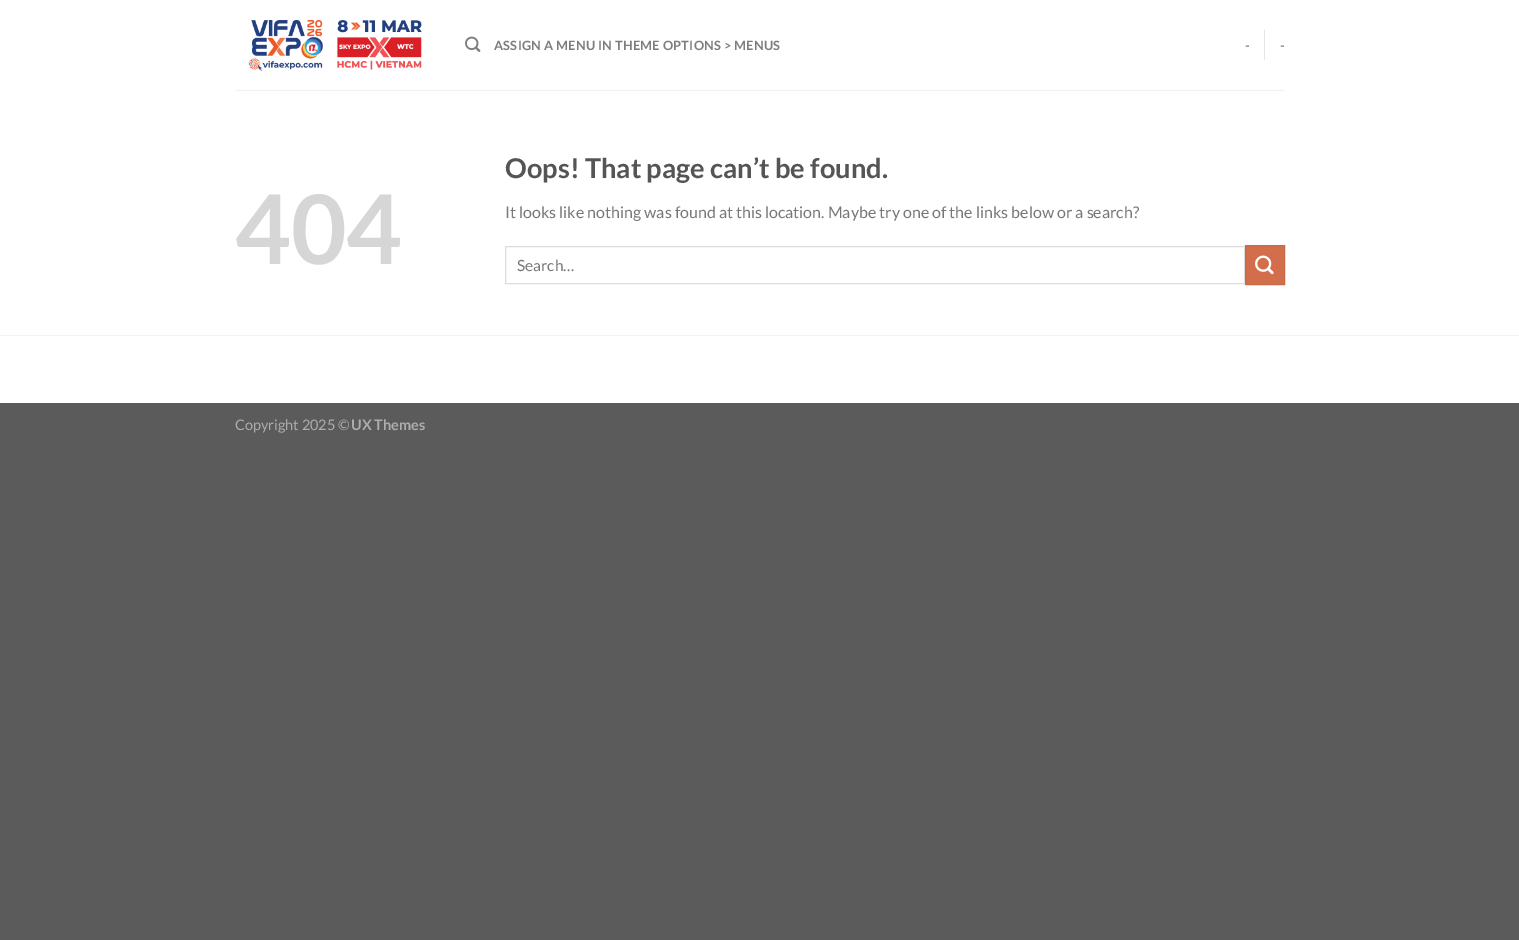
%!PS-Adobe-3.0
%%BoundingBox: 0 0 1519 940
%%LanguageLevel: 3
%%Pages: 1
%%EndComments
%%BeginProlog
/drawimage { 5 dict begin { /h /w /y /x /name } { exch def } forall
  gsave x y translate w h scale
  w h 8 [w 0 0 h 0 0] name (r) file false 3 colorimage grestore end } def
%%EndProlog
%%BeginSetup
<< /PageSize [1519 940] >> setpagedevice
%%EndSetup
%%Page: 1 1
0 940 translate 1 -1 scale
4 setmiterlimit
0.357 setgray
0 0 1519 940 rectfill
1 setgray
0 0 1519 403 rectfill
(images/1.raw) 248 19 174 52 drawimage
(images/2.raw) 465 36 16 16 drawimage
0.902 setgray
1264 30 1 30 rectfill
0.945 setgray
235 90 1050 1 rectfill
0.867 setgray
505.5 246.5 739 37 rectstroke
0.824 0.431 0.294 setrgbcolor
newpath 1245.5 245.5 moveto 1284.5 245.5 lineto 1284.5 284.5 lineto 1245.5 284.5 lineto closepath gsave fill grestore
0.784 0.412 0.278 setrgbcolor
stroke
(images/3.raw) 1255 255 19 20 drawimage
0.949 setgray
0 335 1519 1 rectfill
/Lato-Bold [12.8 0 0 -12.8 0 0] selectfont
0.49 setgray
494 50 moveto 0.25 0 (ASSIGN A MENU IN THEME OPTIONS > MENUS) ashow
1245 50 moveto 0.25 0 (-) ashow
1280 50 moveto 0.25 0 (-) ashow
/Lato-Bold [96 0 0 -96 0 0] selectfont
0.839 setgray
235 264 moveto (404) show
/Lato-Bold [27.25 0 0 -27.25 0 0] selectfont
0.333 setgray
505 178 moveto (Oops! That page can’t be found.) show
/Lato-Regular [16 0 0 -16 0 0] selectfont
0.467 setgray
505 218 moveto (It looks like nothing was found at this location. Maybe try one of the links below or a search?) show
/Lato-Regular [15.5 0 0 -15.5 0 0] selectfont
517 271 moveto (Search…) show
/Lato-Regular [14.5 0 0 -14.5 0 0] selectfont
0.678 setgray
235 430 moveto (Copyright 2025 ©) show
/Lato-Bold [14.5 0 0 -14.5 0 0] selectfont
351 430 moveto (UX Themes) show
showpage
%%EOF
